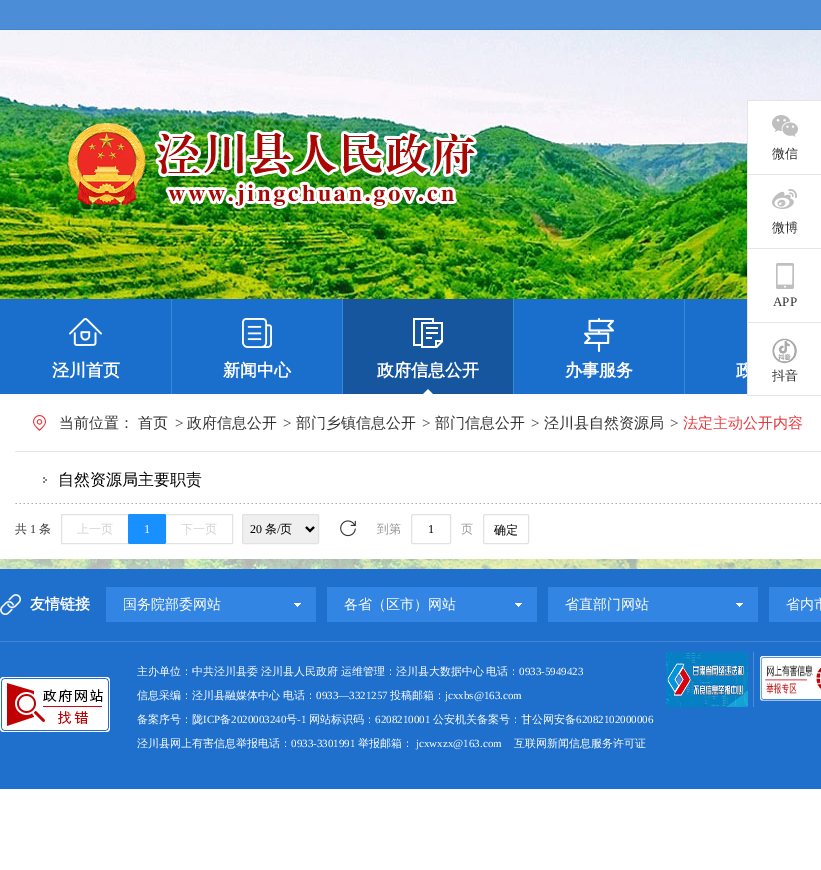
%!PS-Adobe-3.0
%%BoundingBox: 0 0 821 870
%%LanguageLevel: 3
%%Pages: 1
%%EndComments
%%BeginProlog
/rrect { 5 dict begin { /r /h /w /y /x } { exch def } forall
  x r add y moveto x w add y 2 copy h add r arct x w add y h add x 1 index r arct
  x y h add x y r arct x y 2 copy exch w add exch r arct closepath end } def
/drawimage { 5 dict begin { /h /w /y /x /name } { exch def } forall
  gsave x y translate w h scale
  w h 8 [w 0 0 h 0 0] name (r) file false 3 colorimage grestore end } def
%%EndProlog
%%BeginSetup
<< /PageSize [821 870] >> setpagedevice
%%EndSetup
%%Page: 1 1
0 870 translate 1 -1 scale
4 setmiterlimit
1 setgray
0 0 821 870 rectfill
0.294 0.553 0.839 setrgbcolor
0 0 821 29 rectfill
0.227 0.525 0.839 setrgbcolor
0 29 821 1 rectfill
(images/1.raw) 0 30 821 539 drawimage
(images/2.raw) 68 123 78 82 drawimage
(images/3.raw) 154 129 324 80 drawimage
1 setgray
748 101 73 73 rectfill
0.898 setgray
747 100 74 1 rectfill
747 100 1 74 rectfill
(images/4.raw) 772 115 26 22 drawimage
1 setgray
748 175 73 73 rectfill
0.898 setgray
747 174 74 1 rectfill
747 174 1 74 rectfill
(images/5.raw) 772 189 25 20 drawimage
1 setgray
748 249 73 73 rectfill
0.898 setgray
747 248 74 1 rectfill
747 248 1 74 rectfill
(images/6.raw) 776 263 18 26 drawimage
1 setgray
748 323 73 71 rectfill
0.898 setgray
747 322 74 1 rectfill
1 setgray
0 394 821 165 rectfill
0.898 setgray
747 395 74 1 rectfill
(images/7.raw) 772 338 25 26 drawimage
0.102 0.431 0.8 setrgbcolor
0 299 171 95 rectfill
(images/8.raw) 69 318 33 28 drawimage
172 299 170 95 rectfill
(images/9.raw) 242 318 30 30 drawimage
0.204 0.545 0.847 setrgbcolor
171 299 1 95 rectfill
0.086 0.337 0.62 setrgbcolor
343 299 170 95 rectfill
(images/10.raw) 413 318 30 30 drawimage
0.204 0.545 0.847 setrgbcolor
342 299 1 95 rectfill
(images/11.raw) 423 389 10 5 drawimage
0.102 0.431 0.8 setrgbcolor
514 299 170 95 rectfill
(images/12.raw) 584 318 30 34 drawimage
0.204 0.545 0.847 setrgbcolor
513 299 1 95 rectfill
0.102 0.431 0.8 setrgbcolor
685 299 62 95 rectfill
0.204 0.545 0.847 setrgbcolor
684 299 1 95 rectfill
(images/13.raw) 33 415 13 16 drawimage
0.898 setgray
15 451 806 1 rectfill
(images/14.raw) 15 503 806 1 drawimage
(images/15.raw) 43 477 4 6 drawimage
0.886 setgray
61.5 514.5 67 29 rectstroke
165.5 514.5 67 29 rectstroke
128.5 514.5 37 29 rectstroke
0.094 0.565 1 setrgbcolor
128 514 38 30 2 rrect fill
0.937 setgray
242.5 514.5 76 29 1.5 rrect gsave fill grestore
0.886 setgray
stroke
0 setgray
2 setlinewidth
newpath 306 527 moveto 310 531 lineto 314 527 lineto stroke
(images/16.raw) 340 520 16 17 drawimage
0.886 setgray
1 setlinewidth
411.5 514.5 39 29 1.5 rrect stroke
483.5 514.5 45 29 1.5 rrect stroke
0.118 0.439 0.8 setrgbcolor
0 569 821 220 rectfill
(images/17.raw) 0 594 21 21 drawimage
0.196 0.522 0.886 setrgbcolor
106 587 210 35 rectfill
(images/18.raw) 294 603 7 4 drawimage
327 587 210 35 rectfill
(images/18.raw) 515 603 7 4 drawimage
548 587 210 35 rectfill
(images/18.raw) 736 603 7 4 drawimage
769 587 52 35 rectfill
0.271 0.525 0.816 setrgbcolor
0 641 821 1 rectfill
(images/19.raw) 0 677 110 55 drawimage
(images/20.raw) 666 652 82 55 drawimage
0.294 0.553 0.839 setrgbcolor
753 652 1 55 rectfill
(images/21.raw) 760 656 61 45 drawimage
/WenQuanYiZenHei-Medium [13 0 0 -13 0 0] selectfont
0.2 setgray
772 158 moveto (微信) show
772 232 moveto (微博) show
/LiberationSerif-Regular [13 0 0 -13 0 0] selectfont
773 306 moveto (APP) show
/WenQuanYiZenHei-Medium [13 0 0 -13 0 0] selectfont
772 380 moveto (抖音) show
/WenQuanYiZenHei-Bold [17 0 0 -17 0 0] selectfont
1 setgray
52 376 moveto (泾川首页) show
223 376 moveto (新闻中心) show
377 376 moveto (政府信息公开) show
565 376 moveto (办事服务) show
736 376 moveto (政) show
0.898 setgray
747 322 1 74 rectfill
/WenQuanYiZenHei-Medium [15 0 0 -15 0 0] selectfont
0.2 setgray
59 428 moveto (当前位置：) show
138 428 moveto (首页) show
/LiberationSerif-Regular [15 0 0 -15 0 0] selectfont
175 428 moveto (>) show
/WenQuanYiZenHei-Medium [15 0 0 -15 0 0] selectfont
187 428 moveto (政府信息公开) show
/LiberationSerif-Regular [15 0 0 -15 0 0] selectfont
283 428 moveto (>) show
/WenQuanYiZenHei-Medium [15 0 0 -15 0 0] selectfont
296 428 moveto (部门乡镇信息公开) show
/LiberationSerif-Regular [15 0 0 -15 0 0] selectfont
422 428 moveto (>) show
/WenQuanYiZenHei-Medium [15 0 0 -15 0 0] selectfont
435 428 moveto (部门信息公开) show
/LiberationSerif-Regular [15 0 0 -15 0 0] selectfont
531 428 moveto (>) show
/WenQuanYiZenHei-Medium [15 0 0 -15 0 0] selectfont
544 428 moveto (泾川县自然资源局) show
/LiberationSerif-Regular [15 0 0 -15 0 0] selectfont
670 428 moveto (>) show
/WenQuanYiZenHei-Medium [15 0 0 -15 0 0] selectfont
0.918 0.224 0.239 setrgbcolor
683 428 moveto (法定主动公开内容) show
/WenQuanYiZenHei-Medium [16 0 0 -16 0 0] selectfont
0 setgray
58 485 moveto (自然资源局主要职责) show
/WenQuanYiZenHei-Medium [12 0 0 -12 0 0] selectfont
0.2 setgray
15 533 moveto (共) show
/LiberationSerif-Regular [12 0 0 -12 0 0] selectfont
30 533 moveto (1) show
/WenQuanYiZenHei-Medium [12 0 0 -12 0 0] selectfont
39 533 moveto (条) show
0.824 setgray
77 533 moveto (上一页) show
/LiberationSerif-Regular [12 0 0 -12 0 0] selectfont
1 setgray
144 533 moveto (1) show
/WenQuanYiZenHei-Medium [12 0 0 -12 0 0] selectfont
0.824 setgray
181 533 moveto (下一页) show
/LiberationSerif-Regular [12 0 0 -12 0 0] selectfont
0 setgray
250 533 moveto (20) show
/WenQuanYiZenHei-Medium [12 0 0 -12 0 0] selectfont
265 533 moveto (条) show
/LiberationSerif-Regular [12 0 0 -12 0 0] selectfont
277 533 moveto (/) show
/WenQuanYiZenHei-Medium [12 0 0 -12 0 0] selectfont
280 533 moveto (页) show
0.6 setgray
377 533 moveto (到第) show
/LiberationSerif-Regular [12 0 0 -12 0 0] selectfont
0 setgray
428 533 moveto (1) show
/WenQuanYiZenHei-Medium [12 0 0 -12 0 0] selectfont
0.6 setgray
461 533 moveto (页) show
0 setgray
494 534 moveto (确定) show
/WenQuanYiZenHei-Bold [15 0 0 -15 0 0] selectfont
1 setgray
30 609 moveto (友情链接) show
/WenQuanYiZenHei-Medium [14 0 0 -14 0 0] selectfont
123 609 moveto (国务院部委网站) show
344 609 moveto (各省（区市）网站) show
565 609 moveto (省直部门网站) show
786 609 moveto (省内市) show
/WenQuanYiZenHei-Medium [11 0 0 -11 0 0] selectfont
137 675 moveto -0.5 0 32 (主办单位：中共泾川县委 泾川县人民政府 运维管理：泾川县大数据中心 电话：) widthshow
/LiberationSerif-Regular [11 0 0 -11 0 0] selectfont
519 675 moveto (0933-5949423) show
/WenQuanYiZenHei-Medium [11 0 0 -11 0 0] selectfont
137 699 moveto (信息采编：泾川县融媒体中心 电话：) show
/LiberationSerif-Regular [11 0 0 -11 0 0] selectfont
316 699 moveto (0933—3321257) show
/WenQuanYiZenHei-Medium [11 0 0 -11 0 0] selectfont
390 699 moveto (投稿邮箱：) show
/LiberationSerif-Regular [11 0 0 -11 0 0] selectfont
445 699 moveto (jcxxbs@163.com) show
/WenQuanYiZenHei-Medium [11 0 0 -11 0 0] selectfont
137 723 moveto (备案序号：陇) show
/LiberationSerif-Regular [11 0 0 -11 0 0] selectfont
203 723 moveto (ICP) show
/WenQuanYiZenHei-Medium [11 0 0 -11 0 0] selectfont
220 723 moveto (备) show
/LiberationSerif-Regular [11 0 0 -11 0 0] selectfont
231 723 moveto (2020003240) show
/WenQuanYiZenHei-Medium [11 0 0 -11 0 0] selectfont
286 723 moveto (号) show
/LiberationSerif-Regular [11 0 0 -11 0 0] selectfont
297 723 moveto (-1) show
/WenQuanYiZenHei-Medium [11 0 0 -11 0 0] selectfont
309 723 moveto (网站标识码：) show
/LiberationSerif-Regular [11 0 0 -11 0 0] selectfont
375 723 moveto (6208210001) show
/WenQuanYiZenHei-Medium [11 0 0 -11 0 0] selectfont
433 723 moveto (公安机关备案号：甘公网安备) show
/LiberationSerif-Regular [11 0 0 -11 0 0] selectfont
576 723 moveto (62082102000006) show
/WenQuanYiZenHei-Medium [11 0 0 -11 0 0] selectfont
137 747 moveto (泾川县网上有害信息举报电话：) show
/LiberationSerif-Regular [11 0 0 -11 0 0] selectfont
291 747 moveto (0933-3301991) show
/WenQuanYiZenHei-Medium [11 0 0 -11 0 0] selectfont
358 747 moveto (举报邮箱：) show
/LiberationSerif-Regular [11 0 0 -11 0 0] selectfont
416 747 moveto (jcxwxzx@163.com) show
/WenQuanYiZenHei-Medium [11 0 0 -11 0 0] selectfont
514 747 moveto (互联网新闻信息服务许可证) show
showpage
%%EOF
